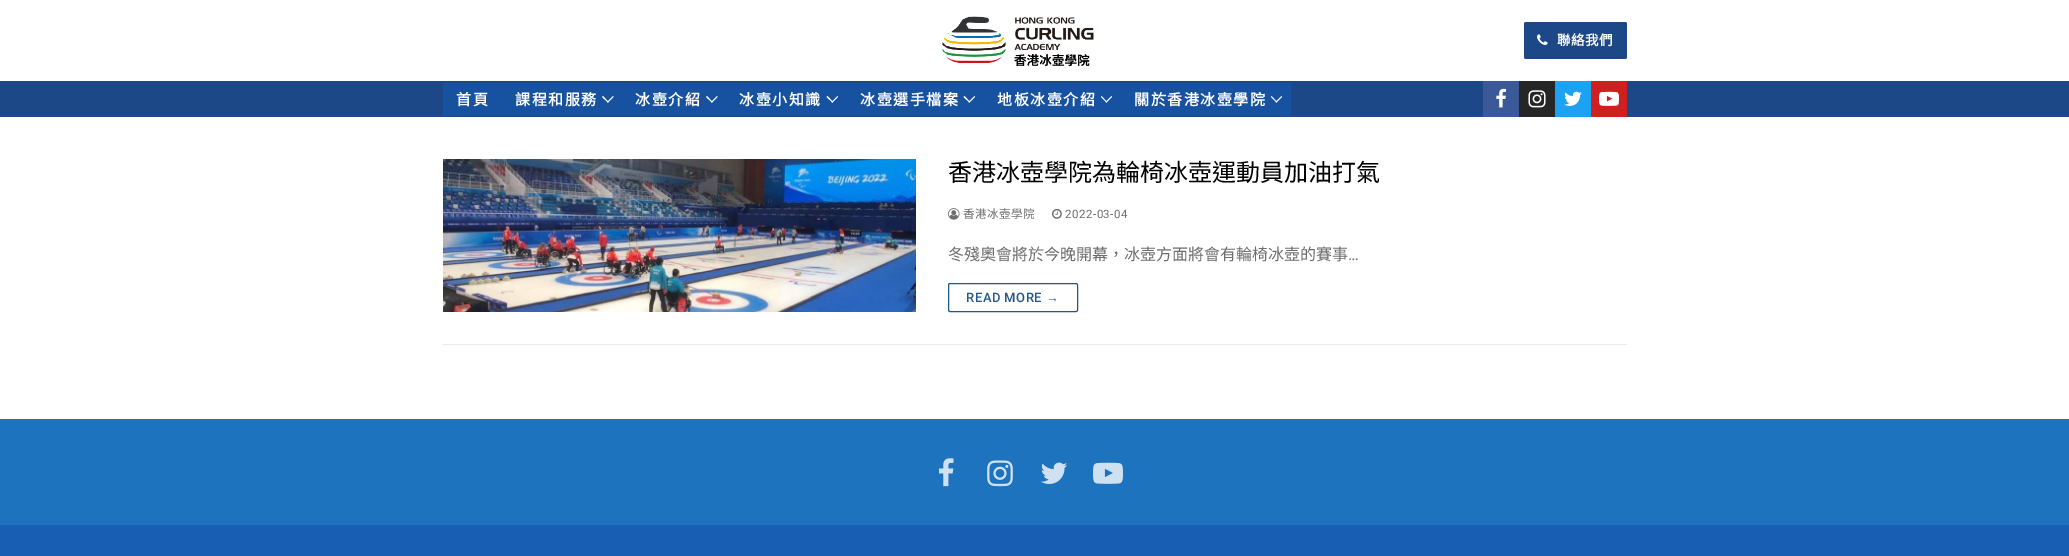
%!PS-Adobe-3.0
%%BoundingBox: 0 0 2069 556
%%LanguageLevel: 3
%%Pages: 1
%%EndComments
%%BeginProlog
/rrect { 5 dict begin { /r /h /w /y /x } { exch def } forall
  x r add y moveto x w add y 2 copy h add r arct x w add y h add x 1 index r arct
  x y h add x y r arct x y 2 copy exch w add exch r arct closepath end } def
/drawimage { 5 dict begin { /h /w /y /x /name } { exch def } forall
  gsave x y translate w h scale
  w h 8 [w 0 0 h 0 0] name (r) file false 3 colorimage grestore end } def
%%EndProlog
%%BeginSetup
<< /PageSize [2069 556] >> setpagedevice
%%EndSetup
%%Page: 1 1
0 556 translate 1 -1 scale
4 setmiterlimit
1 setgray
0 0 2069 556 rectfill
(images/1.raw) 942 16 152 50 drawimage
0.114 0.282 0.529 setrgbcolor
1524 22 103 37 2 rrect fill
(images/2.raw) 1537 34 11 11 drawimage
0 81 2069 36 rectfill
0.086 0.322 0.627 setrgbcolor
443 83 848 33 rectfill
1 setgray
newpath 608 102.5 moveto 602 97 lineto 603 96 lineto 608.5 102 lineto closepath fill
newpath 608 102.5 moveto 607 102 lineto 613 96 lineto 613.5 97 lineto closepath fill
newpath 712 102.5 moveto 706 97 lineto 707 96 lineto 712.5 102 lineto closepath fill
newpath 712 102.5 moveto 711 102 lineto 717 96 lineto 717.5 97 lineto closepath fill
newpath 832.5 102.5 moveto 826.5 97 lineto 827.5 96 lineto 833 102 lineto closepath fill
newpath 832.5 102.5 moveto 831.5 102 lineto 837.5 96 lineto 838 97 lineto closepath fill
newpath 969.5 102.5 moveto 963.5 97 lineto 964.5 96 lineto 970 102 lineto closepath fill
newpath 969.5 102.5 moveto 968.5 102 lineto 974.5 96 lineto 975 97 lineto closepath fill
newpath 1106.5 102.5 moveto 1101 97 lineto 1101.5 96 lineto 1107 102 lineto closepath fill
newpath 1106.5 102.5 moveto 1105.5 102 lineto 1111.5 96 lineto 1112 97 lineto closepath fill
newpath 1276.5 102.5 moveto 1271 97 lineto 1271.5 96 lineto 1277 102 lineto closepath fill
newpath 1276.5 102.5 moveto 1275.5 102 lineto 1281.5 96 lineto 1282 97 lineto closepath fill
0.231 0.349 0.596 setrgbcolor
1483 81 36 36 rectfill
(images/3.raw) 1496 88 10 20 drawimage
0.149 setgray
1519 81 36 36 rectfill
(images/4.raw) 1528 90 18 18 drawimage
0.114 0.631 0.949 setrgbcolor
1555 81 36 36 rectfill
(images/5.raw) 1564 91 18 15 drawimage
0.804 0.125 0.122 setrgbcolor
1591 81 36 36 rectfill
(images/6.raw) 1599 91 20 15 drawimage
0.918 0.925 0.933 setrgbcolor
443 344 1184 1 rectfill
(images/7.raw) 443 159 473 153 drawimage
(images/8.raw) 948 208 12 12 drawimage
(images/9.raw) 1052 209 10 10 drawimage
0.137 0.341 0.529 setrgbcolor
948.5 283.5 129 28 1.5 rrect stroke
0.118 0.451 0.745 setrgbcolor
0 419 2069 106 rectfill
(images/10.raw) 939 458 15 29 drawimage
(images/11.raw) 987 460 26 27 drawimage
(images/12.raw) 1041 462 26 22 drawimage
(images/13.raw) 1093 462 30 22 drawimage
0.094 0.369 0.698 setrgbcolor
0 525 2069 31 rectfill
/NotoSansCJKHK-Bold [13.5 0 0 -13.5 0 0] selectfont
1 setgray
1557 45 moveto 0.5 0 (聯絡我們) ashow
/NotoSansCJKHK-Bold [15 0 0 -15 0 0] selectfont
456 105 moveto 1.5 0 (首頁) ashow
515 105 moveto 1.5 0 (課程和服務) ashow
635 105 moveto 1.5 0 (冰壺介紹) ashow
739 105 moveto 1.5 0 (冰壺小知識) ashow
860 105 moveto 1.5 0 (冰壺選手檔案) ashow
997 105 moveto 1.5 0 (地板冰壺介紹) ashow
1134 105 moveto 1.5 0 (關於香港冰壺學院) ashow
/NotoSansCJKHK-Regular [24 0 0 -24 0 0] selectfont
0 setgray
948 181 moveto (香港冰壺學院為輪椅冰壺運動員加油打氣) show
/NotoSansCJKHK-Regular [11.5 0 0 -11.5 0 0] selectfont
0.427 setgray
963 218 moveto 0.5 0 (香港冰壺學院) ashow
/Roboto-Regular [11.5 0 0 -11.5 0 0] selectfont
1065 218 moveto 0.5 0 (2022-03-04) ashow
/NotoSansCJKHK-Regular [16 0 0 -16 0 0] selectfont
948 260 moveto (冬殘奧會將於今晚開幕，冰壺方面將會有輪椅冰壺的賽事) show
/Roboto-Regular [16 0 0 -16 0 0] selectfont
1348 260 moveto (…) show
/Roboto-Medium [13 0 0 -13 0 0] selectfont
0.137 0.341 0.529 setrgbcolor
966 302 moveto 0.5 0 (READ MORE) ashow
/LiberationSans-Regular [13 0 0 -13 0 0] selectfont
1046 302 moveto 0.5 0 (→) ashow
showpage
%%EOF
